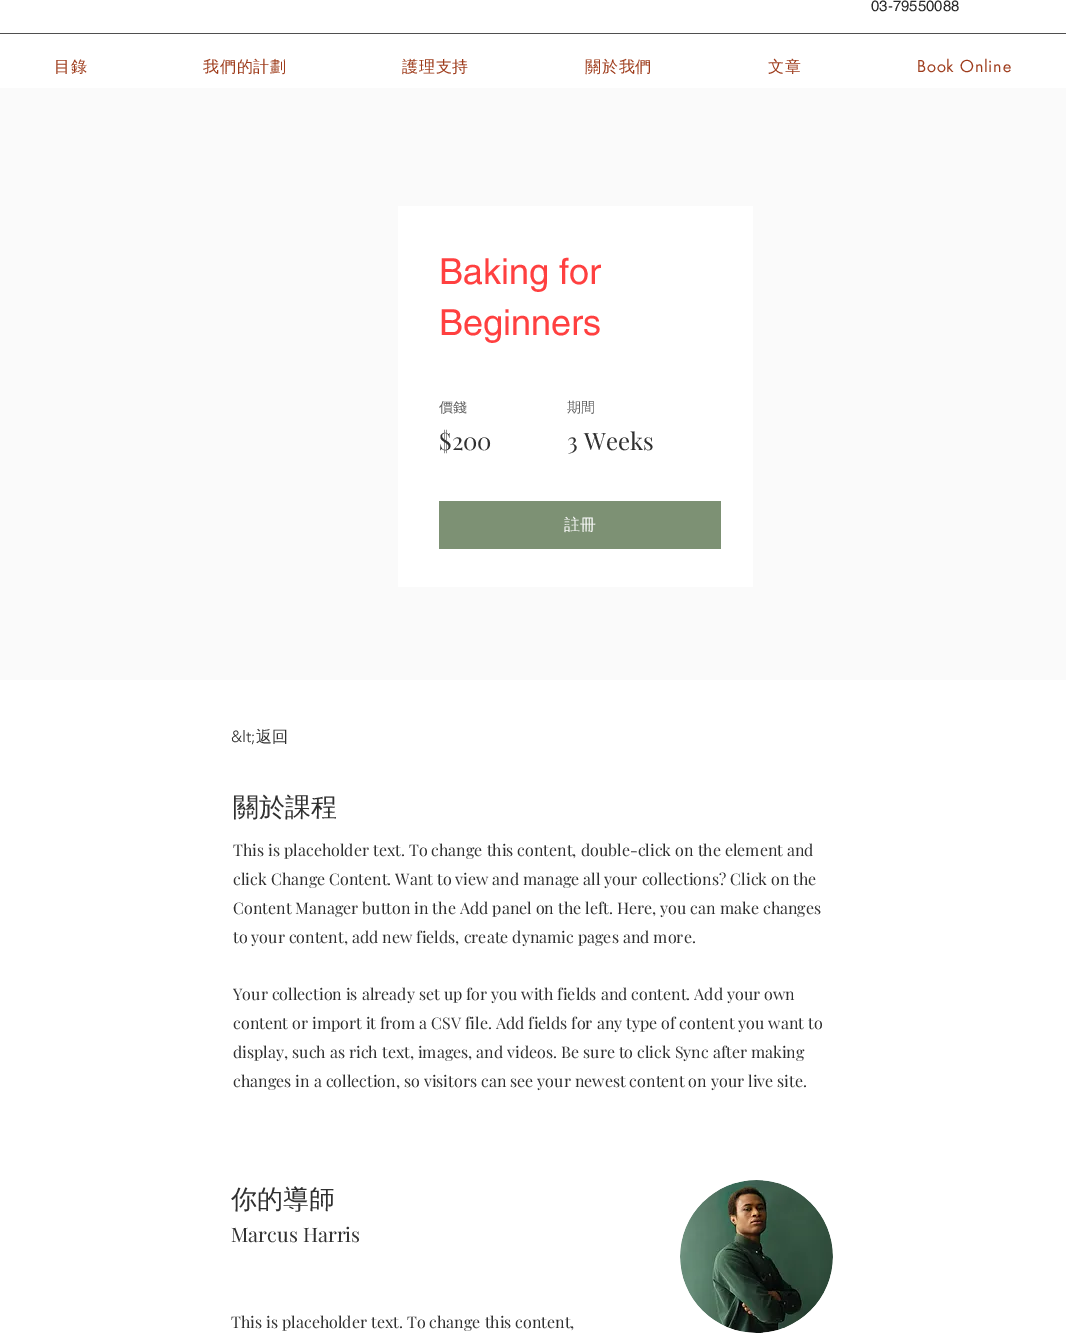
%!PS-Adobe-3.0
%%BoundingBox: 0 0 1066 1337
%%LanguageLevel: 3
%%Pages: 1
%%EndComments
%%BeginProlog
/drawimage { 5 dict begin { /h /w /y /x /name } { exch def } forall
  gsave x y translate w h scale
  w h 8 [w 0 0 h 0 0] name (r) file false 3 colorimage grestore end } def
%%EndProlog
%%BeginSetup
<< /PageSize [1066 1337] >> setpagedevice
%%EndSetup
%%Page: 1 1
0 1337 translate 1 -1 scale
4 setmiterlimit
1 setgray
0 0 1066 1337 rectfill
0.31 setgray
0 33 1066 1 rectfill
0.98 setgray
0 88 1066 592 rectfill
1 setgray
398 206 355 381 rectfill
0.49 0.569 0.455 setrgbcolor
439 501 282 48 rectfill
(images/1.raw) 680 1180 153 153 drawimage
/helvetica-Regular [15 0 0 -15 0 0] selectfont
0.161 setgray
871 11 moveto (03-79550088) show
/WenQuanYiZenHei-Medium [16 0 0 -16 0 0] selectfont
0.62 0.231 0.106 setrgbcolor
54 72 moveto 0.75 0 (目錄) ashow
203 72 moveto 0.75 0 (我們的計劃) ashow
402 72 moveto 0.75 0 (護理支持) ashow
585 72 moveto 0.75 0 (關於我們) ashow
768 72 moveto 0.75 0 (文章) ashow
/futura-Regular [16 0 0 -16 0 0] selectfont
917 72 moveto 0.75 0 (Book Online) ashow
/helvetica-Regular [36 0 0 -36 0 0] selectfont
1 0.251 0.251 setrgbcolor
439 284 moveto (Baking for) show
439 335 moveto (Beginners) show
/WenQuanYiZenHei-Medium [14 0 0 -14 0 0] selectfont
0.376 setgray
439 412 moveto (價錢) show
567 412 moveto (期間) show
/PlayfairDisplay-Regular [24 0 0 -24 0 0] selectfont
0.188 setgray
439 450 moveto ($200) show
567 450 moveto (3 Weeks) show
/WenQuanYiZenHei-Medium [16 0 0 -16 0 0] selectfont
1 setgray
564 530 moveto (註冊) show
/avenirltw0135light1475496-Light [16 0 0 -16 0 0] selectfont
0.188 setgray
231 742 moveto (&lt;) show
/WenQuanYiZenHei-Medium [16 0 0 -16 0 0] selectfont
256 742 moveto (返回) show
/WenQuanYiZenHei-Medium [26 0 0 -26 0 0] selectfont
233 816 moveto (關於課程) show
/PlayfairDisplay-Regular [16 0 0 -16 0 0] selectfont
233 856 moveto (This is placeholder text. To change this content, double-click on the element and) show
233 885 moveto (click Change Content. Want to view and manage all your collections? Click on the) show
233 914 moveto (Content Manager button in the Add panel on the left. Here, you can make changes) show
233 943 moveto (to your content, add new fields, create dynamic pages and more.) show
233 1000 moveto (Your collection is already set up for you with fields and content. Add your own) show
233 1029 moveto (content or import it from a CSV file. Add fields for any type of content you want to) show
233 1058 moveto (display, such as rich text, images, and videos. Be sure to click Sync after making) show
233 1087 moveto (changes in a collection, so visitors can see your newest content on your live site.) show
/WenQuanYiZenHei-Medium [26 0 0 -26 0 0] selectfont
231 1208 moveto (你的導師) show
/PlayfairDisplay-Regular [20 0 0 -20 0 0] selectfont
231 1242 moveto (Marcus Harris) show
/PlayfairDisplay-Regular [16 0 0 -16 0 0] selectfont
231 1328 moveto (This is placeholder text. To change this content,) show
showpage
%%EOF
